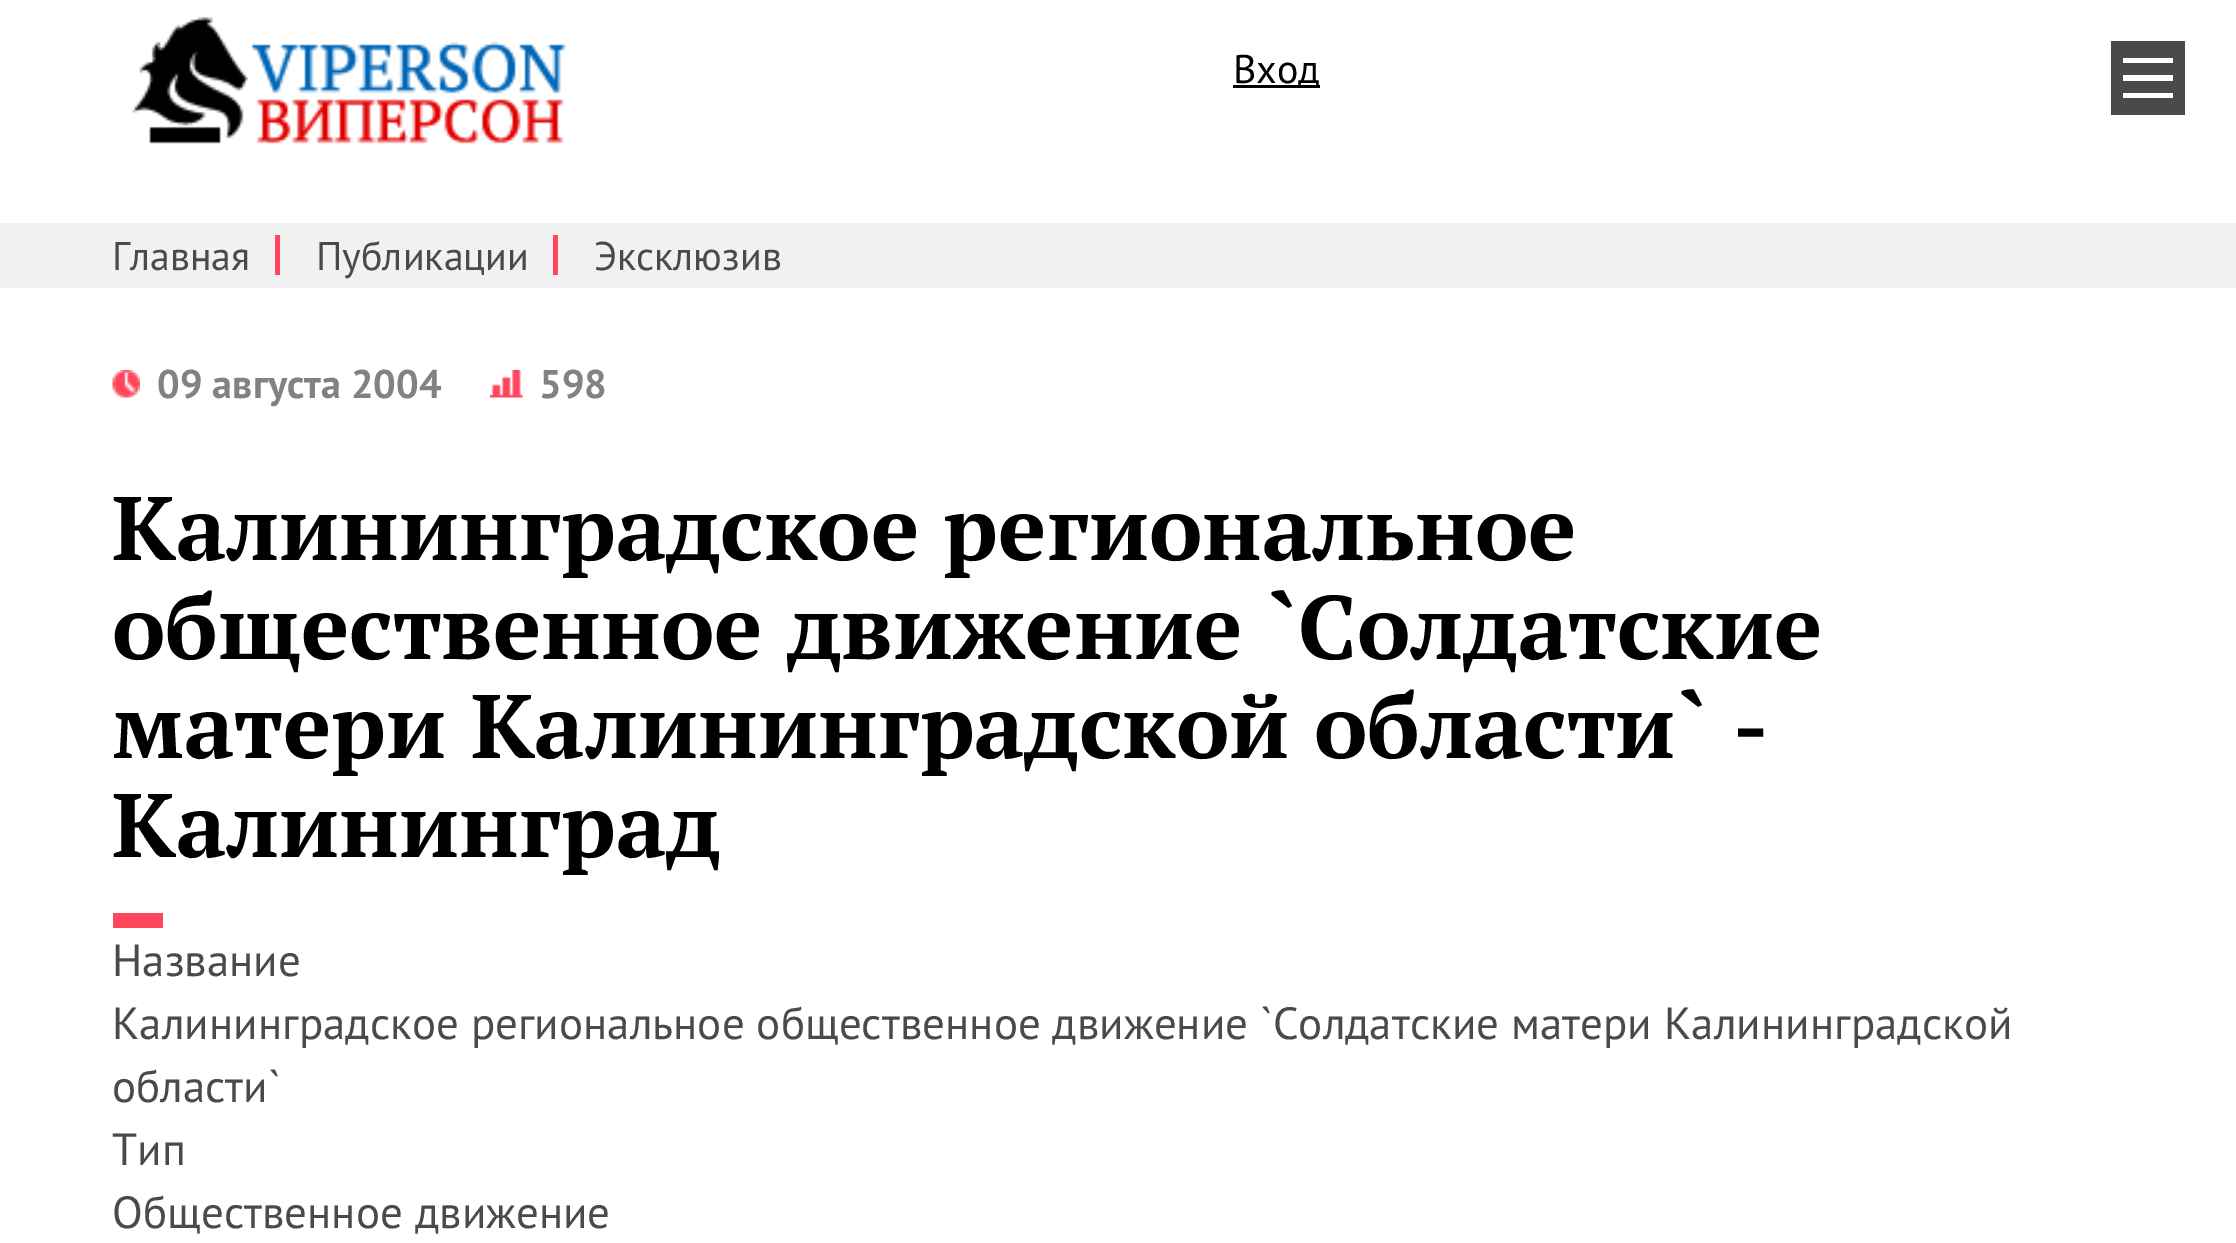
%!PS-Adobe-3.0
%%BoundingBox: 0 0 2236 1243
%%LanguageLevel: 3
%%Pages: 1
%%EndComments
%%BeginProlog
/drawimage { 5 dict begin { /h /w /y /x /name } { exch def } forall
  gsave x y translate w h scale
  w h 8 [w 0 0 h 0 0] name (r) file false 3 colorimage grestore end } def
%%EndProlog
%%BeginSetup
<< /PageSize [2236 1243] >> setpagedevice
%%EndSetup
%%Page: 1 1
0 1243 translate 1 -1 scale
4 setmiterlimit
1 setgray
0 0 2236 1243 rectfill
(images/1.raw) 132 16 434 128 drawimage
0.29 setgray
2111 41 74 74 rectfill
1 setgray
2123 58 50 5 rectfill
2123 93 50 5 rectfill
2123 75 50 6 rectfill
0 setgray
1233 85 87 3 rectfill
0.945 setgray
0 223 2236 65 rectfill
1 0.275 0.365 setrgbcolor
275 235 5 40 rectfill
553 235 5 40 rectfill
(images/2.raw) 112 370 28 28 drawimage
(images/3.raw) 490 370 33 28 drawimage
113 913 50 15 rectfill
/PTSans-Regular [40 0 0 -40 0 0] selectfont
0 setgray
1233 83 moveto (Вход) show
0.29 setgray
112 270 moveto (Главная) show
316 270 moveto (Публикации) show
594 270 moveto (Эксклюзив) show
/PTSans-Bold [40 0 0 -40 0 0] selectfont
0.51 setgray
157 398 moveto (09 августа 2004) show
539 398 moveto (598) show
/PTSerif-Bold [90 0 0 -90 0 0] selectfont
0 setgray
112 560 moveto (Калининградское региональное) show
112 659 moveto (общественное движение `Солдатские) show
112 758 moveto (матери Калининградской области` -) show
112 857 moveto (Калининград) show
/PTSans-Regular [45 0 0 -45 0 0] selectfont
0.29 setgray
112 976 moveto (Название) show
112 1039 moveto (Калининградское региональное общественное движение `Солдатские матери Калининградской) show
112 1102 moveto (области`) show
112 1165 moveto (Тип) show
112 1228 moveto (Общественное движение) show
showpage
%%EOF
